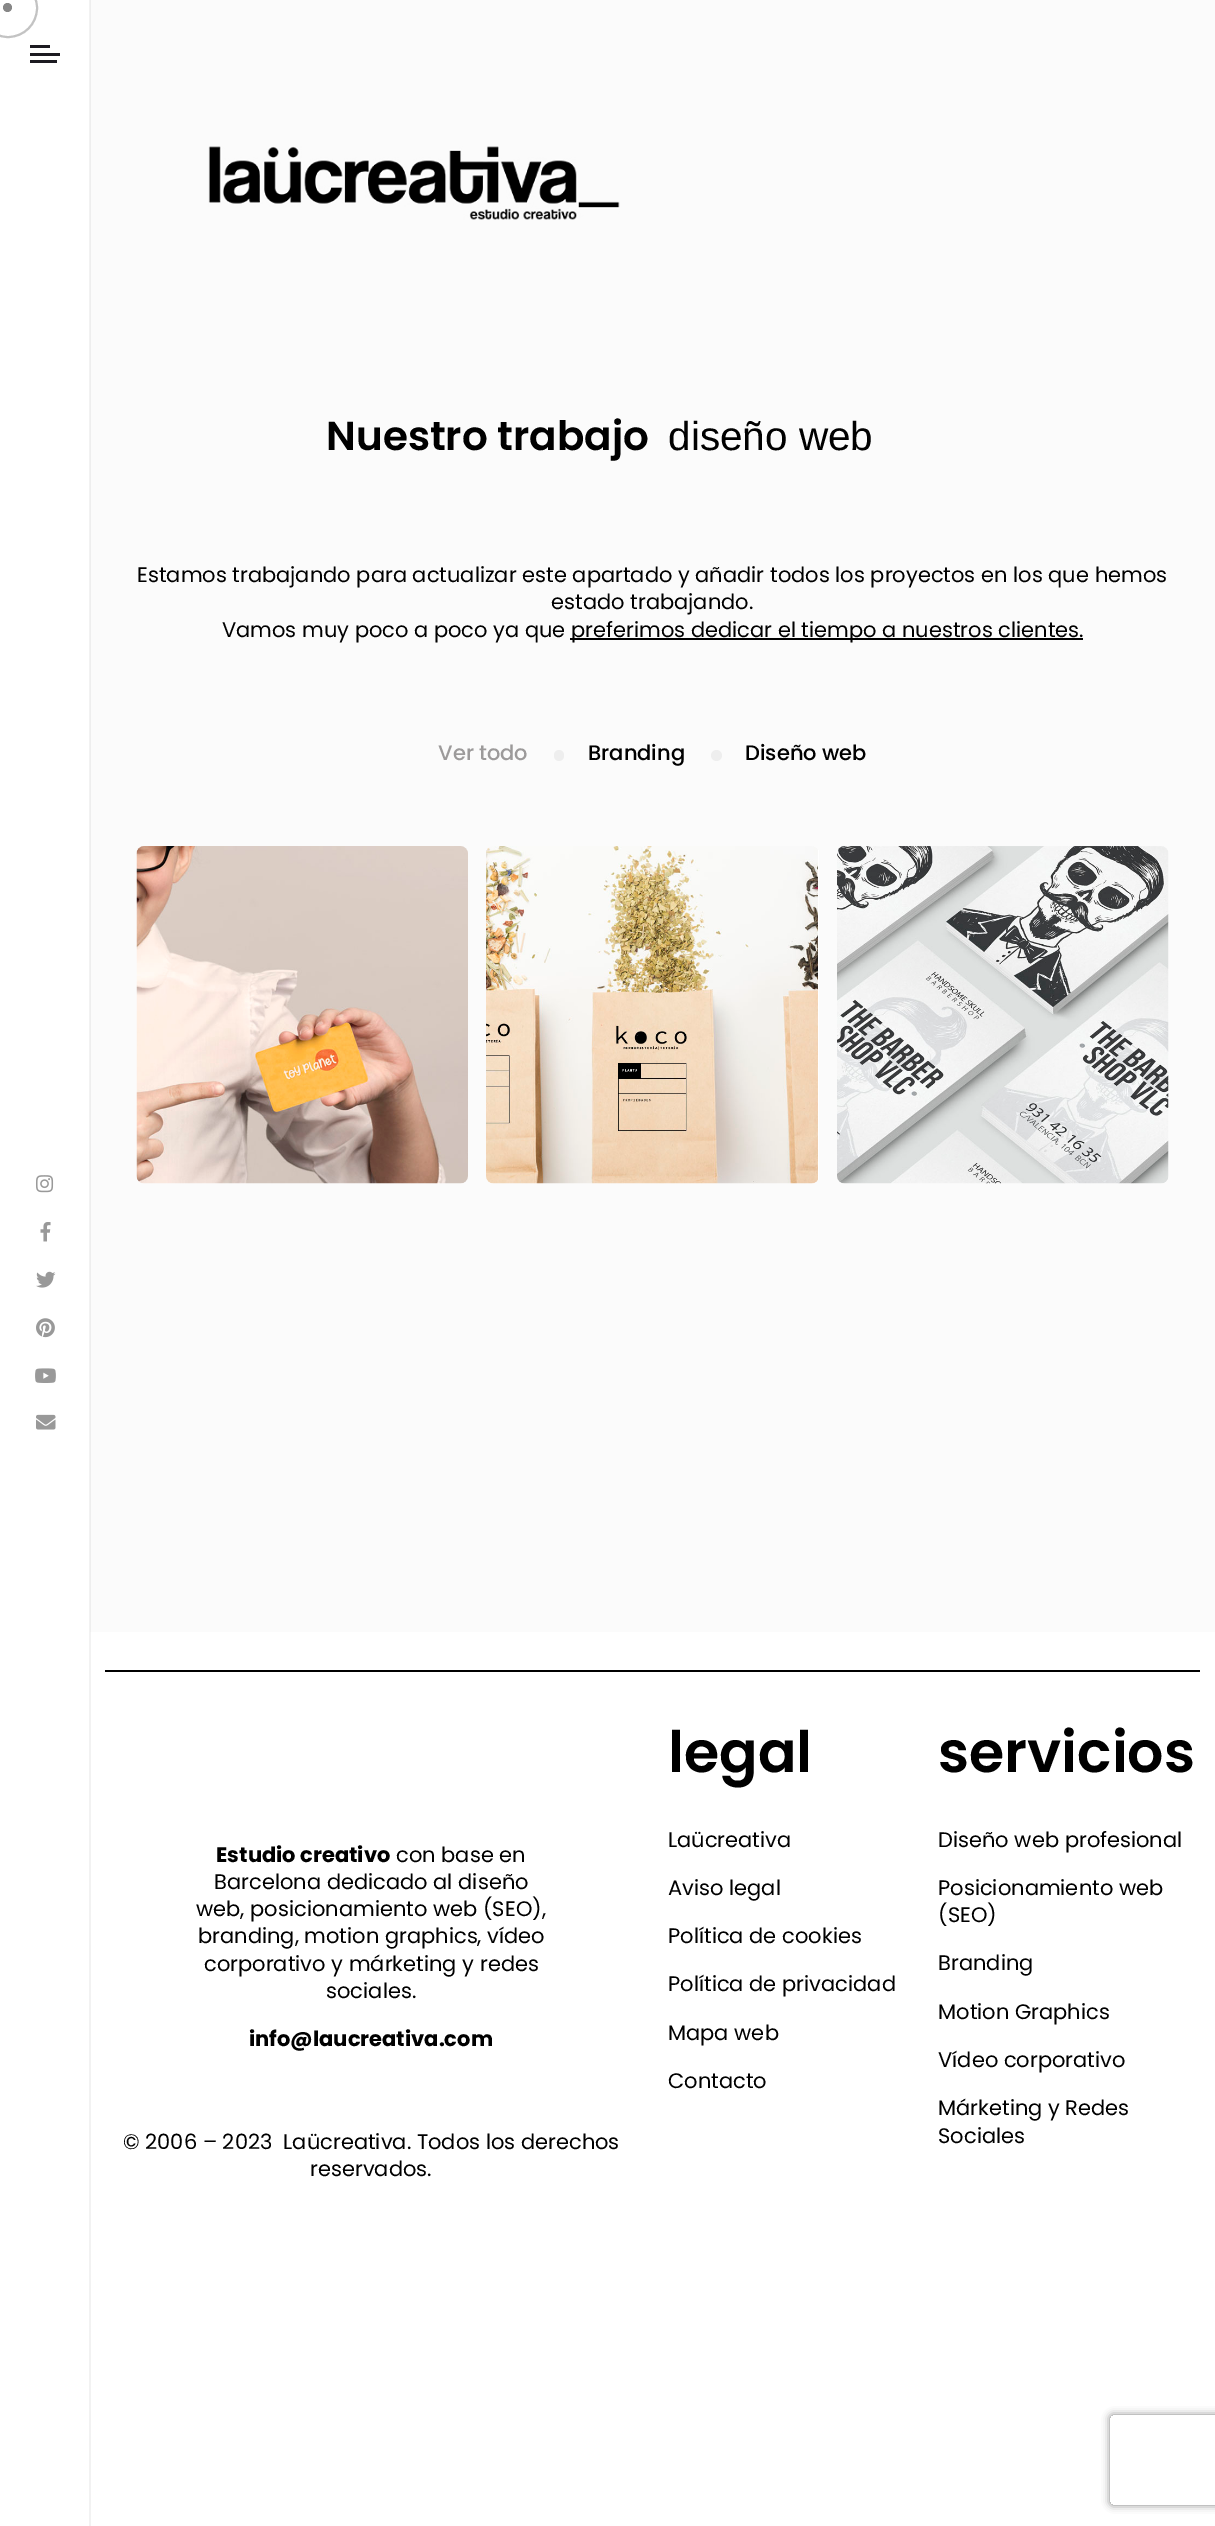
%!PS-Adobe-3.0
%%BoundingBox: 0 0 1215 2526
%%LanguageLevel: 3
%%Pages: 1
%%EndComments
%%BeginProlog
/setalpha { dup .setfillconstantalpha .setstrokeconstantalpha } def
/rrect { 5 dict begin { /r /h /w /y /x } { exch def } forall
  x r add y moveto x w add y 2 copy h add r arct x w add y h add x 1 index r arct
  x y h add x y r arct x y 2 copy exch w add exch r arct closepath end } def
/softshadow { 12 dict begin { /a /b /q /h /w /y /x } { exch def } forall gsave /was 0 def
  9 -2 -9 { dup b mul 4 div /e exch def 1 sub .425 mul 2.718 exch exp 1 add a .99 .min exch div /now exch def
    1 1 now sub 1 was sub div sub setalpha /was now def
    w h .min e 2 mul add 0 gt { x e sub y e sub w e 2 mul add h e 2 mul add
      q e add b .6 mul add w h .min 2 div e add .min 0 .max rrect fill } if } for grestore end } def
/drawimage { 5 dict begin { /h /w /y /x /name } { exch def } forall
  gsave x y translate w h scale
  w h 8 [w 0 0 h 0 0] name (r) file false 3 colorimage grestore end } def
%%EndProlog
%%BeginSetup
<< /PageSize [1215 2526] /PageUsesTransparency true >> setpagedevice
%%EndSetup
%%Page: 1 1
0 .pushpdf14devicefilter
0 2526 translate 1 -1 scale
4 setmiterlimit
1 setgray
0 0 1215 2526 rectfill
0.949 setgray
89 0 2 2526 rectfill
0.765 setgray
2 setlinewidth
newpath 8 8 29 0 360 arc closepath stroke
0.529 setgray
newpath 7.5 7.5 4.5 0 360 arc closepath fill
0.11 0.106 0.129 setrgbcolor
30 45 20 3 rectfill
30 53 30 3 rectfill
30 60 27 3 rectfill
(images/1.raw) 36 1175 18 18 drawimage
(images/2.raw) 40 1222 11 20 drawimage
(images/3.raw) 36 1271 20 17 drawimage
(images/4.raw) 36 1318 19 20 drawimage
(images/5.raw) 35 1368 21 15 drawimage
(images/6.raw) 36 1414 20 16 drawimage
0.984 setgray
91 0 1124 1632 rectfill
0.933 setgray
90 0 1 1632 rectfill
(images/7.raw) 208 146 412 74 drawimage
0 setgray
570 638 513 2 rectfill
0.933 setgray
554 750 10 11 5 rrect fill
newpath 716.5 755.5 5.5 0 360 arc closepath fill
(images/8.raw) 136 846 332 338 drawimage
(images/9.raw) 486 846 333 338 drawimage
gsave
486 846 333 338 8 rrect clip newpath
1 setgray
818 846 1 338 rectfill
grestore
(images/10.raw) 837 846 332 338 drawimage
0 setgray
105 1670 1095 2 rectfill
gsave
newpath 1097 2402 moveto 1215 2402 lineto 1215 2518 lineto 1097 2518 lineto closepath 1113 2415 moveto 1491 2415 lineto 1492.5 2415 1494 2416.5 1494 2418 curveto 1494 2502 lineto 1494 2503.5 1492.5 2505 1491 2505 curveto 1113 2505 lineto 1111.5 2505 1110 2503.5 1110 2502 curveto 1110 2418 lineto 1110 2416.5 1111.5 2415 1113 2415 curveto closepath eoclip newpath
0.502 setgray
1110 2415 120 90 3 4 1 softshadow
grestore
/Poppins-SemiBold [40.5 0 0 -40.5 0 0] selectfont
326 450 moveto (Nuestro trabajo) show
/LiberationSans-Regular [40.5 0 0 -40.5 0 0] selectfont
668 450 moveto (diseño web) show
/Poppins-Regular [21 0 0 -21 0 0] selectfont
137 582 moveto (Estamos trabajando para actualizar este apartado y añadir todos los proyectos en los que hemos) show
551 609 moveto (estado trabajando.) show
222 637 moveto (Vamos muy poco a poco ya que) show
571 637 moveto (preferimos dedicar el tiempo a nuestros clientes.) show
/Poppins-Medium [21 0 0 -21 0 0] selectfont
0.612 0.604 0.604 setrgbcolor
438 760 moveto (Ver todo) show
0 setgray
588 760 moveto (Branding) show
745 760 moveto (Diseño web) show
/Poppins-Bold [21 0 0 -21 0 0] selectfont
216 1862 moveto (Estudio creativo) show
/Poppins-Regular [21 0 0 -21 0 0] selectfont
396 1862 moveto (con base en) show
214 1889 moveto (Barcelona dedicado al diseño) show
196 1916 moveto (web, posicionamiento web \(SEO\),) show
198 1943 moveto (branding, motion graphics, vídeo) show
204 1971 moveto (corporativo y márketing y redes) show
326 1998 moveto (sociales.) show
/Poppins-Bold [21 0 0 -21 0 0] selectfont
249 2046 moveto (info@laucreativa.com) show
/Poppins-Regular [21 0 0 -21 0 0] selectfont
123 2149 moveto (© 2006 – 2023  Laücreativa. Todos los derechos) show
310 2176 moveto (reservados.) show
/Poppins-SemiBold [57 0 0 -57 0 0] selectfont
668 1772 moveto (legal) show
/Poppins-Regular [21 0 0 -21 0 0] selectfont
668 1847 moveto (Laücreativa) show
668 1895 moveto (Aviso legal) show
668 1943 moveto (Política de cookies) show
668 1991 moveto (Política de privacidad) show
668 2040 moveto (Mapa web) show
668 2088 moveto (Contacto) show
/Poppins-SemiBold [57 0 0 -57 0 0] selectfont
938 1772 moveto (servicios) show
/Poppins-Regular [21 0 0 -21 0 0] selectfont
938 1847 moveto (Diseño web profesional) show
938 1895 moveto (Posicionamiento web) show
938 1922 moveto (\(SEO\)) show
938 1970 moveto (Branding) show
938 2019 moveto (Motion Graphics) show
938 2067 moveto (Vídeo corporativo) show
938 2115 moveto (Márketing y Redes) show
938 2143 moveto (Sociales) show
.poppdf14devicefilter showpage
%%EOF
